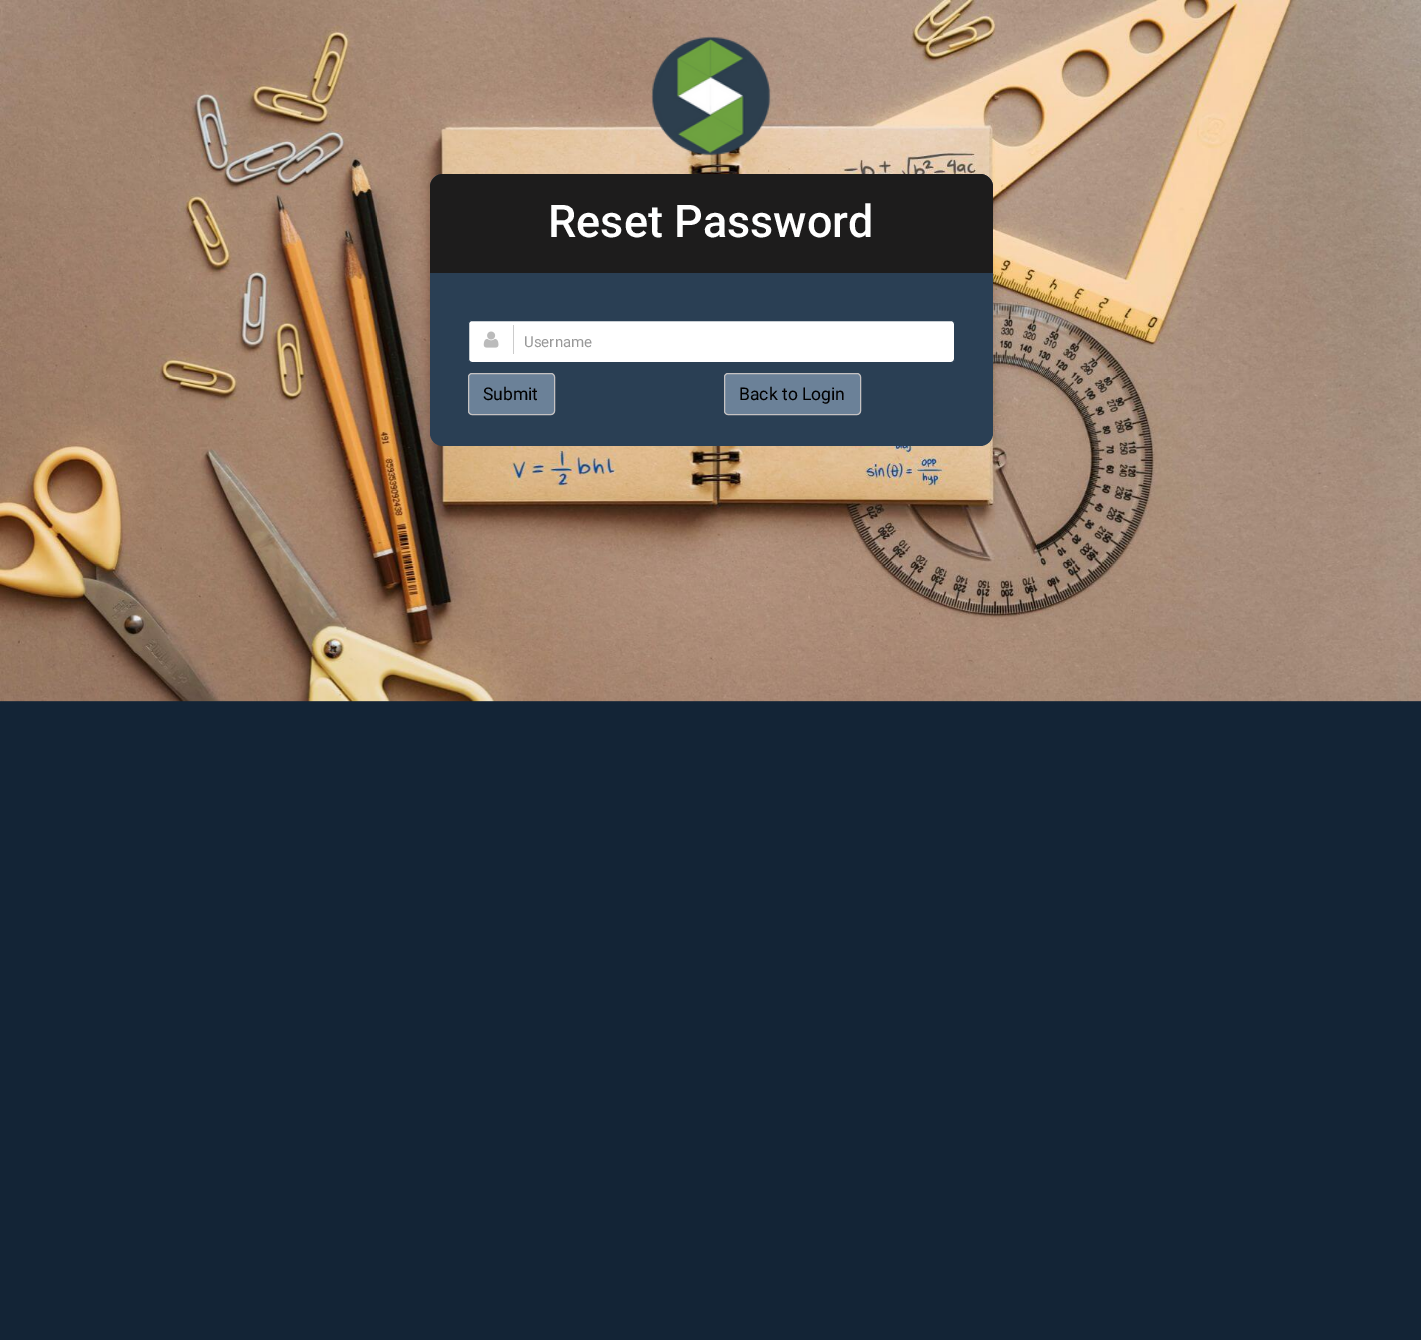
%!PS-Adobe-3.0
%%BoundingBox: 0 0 1421 1340
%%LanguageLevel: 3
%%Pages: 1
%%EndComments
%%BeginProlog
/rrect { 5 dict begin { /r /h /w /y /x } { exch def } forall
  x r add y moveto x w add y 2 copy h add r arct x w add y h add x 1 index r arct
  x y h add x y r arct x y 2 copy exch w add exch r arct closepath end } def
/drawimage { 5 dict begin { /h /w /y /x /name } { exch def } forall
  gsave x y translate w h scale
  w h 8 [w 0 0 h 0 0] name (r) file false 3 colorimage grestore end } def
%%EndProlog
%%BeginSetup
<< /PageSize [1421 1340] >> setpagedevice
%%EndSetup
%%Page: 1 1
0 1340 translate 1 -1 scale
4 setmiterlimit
0.075 0.141 0.212 setrgbcolor
0 0 1421 1340 rectfill
(images/1.raw) 0 0 1421 702 drawimage
(images/2.raw) 651 36 120 120 drawimage
0.165 0.247 0.329 setrgbcolor
430 174 563 272 13 rrect fill
0.114 0.11 0.11 setrgbcolor
newpath 443 174 moveto 980 174 lineto 987 174 993 180 993 187 curveto 993 273 lineto 430 273 lineto 430 187 lineto 430 180 436 174 443 174 curveto closepath fill
1 setgray
468.5 320.5 486 42 3.5 rrect gsave fill grestore
0.165 0.247 0.329 setrgbcolor
stroke
0.8 setgray
513 325 1 29 rectfill
(images/3.raw) 483 331 16 17 drawimage
0.42 0.506 0.596 setrgbcolor
468.5 373.5 86 41 3.5 rrect gsave fill grestore
0.773 0.761 0.761 setrgbcolor
stroke
0.42 0.506 0.596 setrgbcolor
724.5 373.5 136 41 3.5 rrect gsave fill grestore
0.773 0.761 0.761 setrgbcolor
stroke
/Roboto-Medium [45 0 0 -45 0 0] selectfont
1 setgray
548 237 moveto (Reset Password) show
/Roboto-Regular [15 0 0 -15 0 0] selectfont
0.6 setgray
524 347 moveto (Username) show
/Roboto-Regular [17.5 0 0 -17.5 0 0] selectfont
0 setgray
483 400 moveto (Submit) show
739 400 moveto (Back to Login) show
showpage
%%EOF
